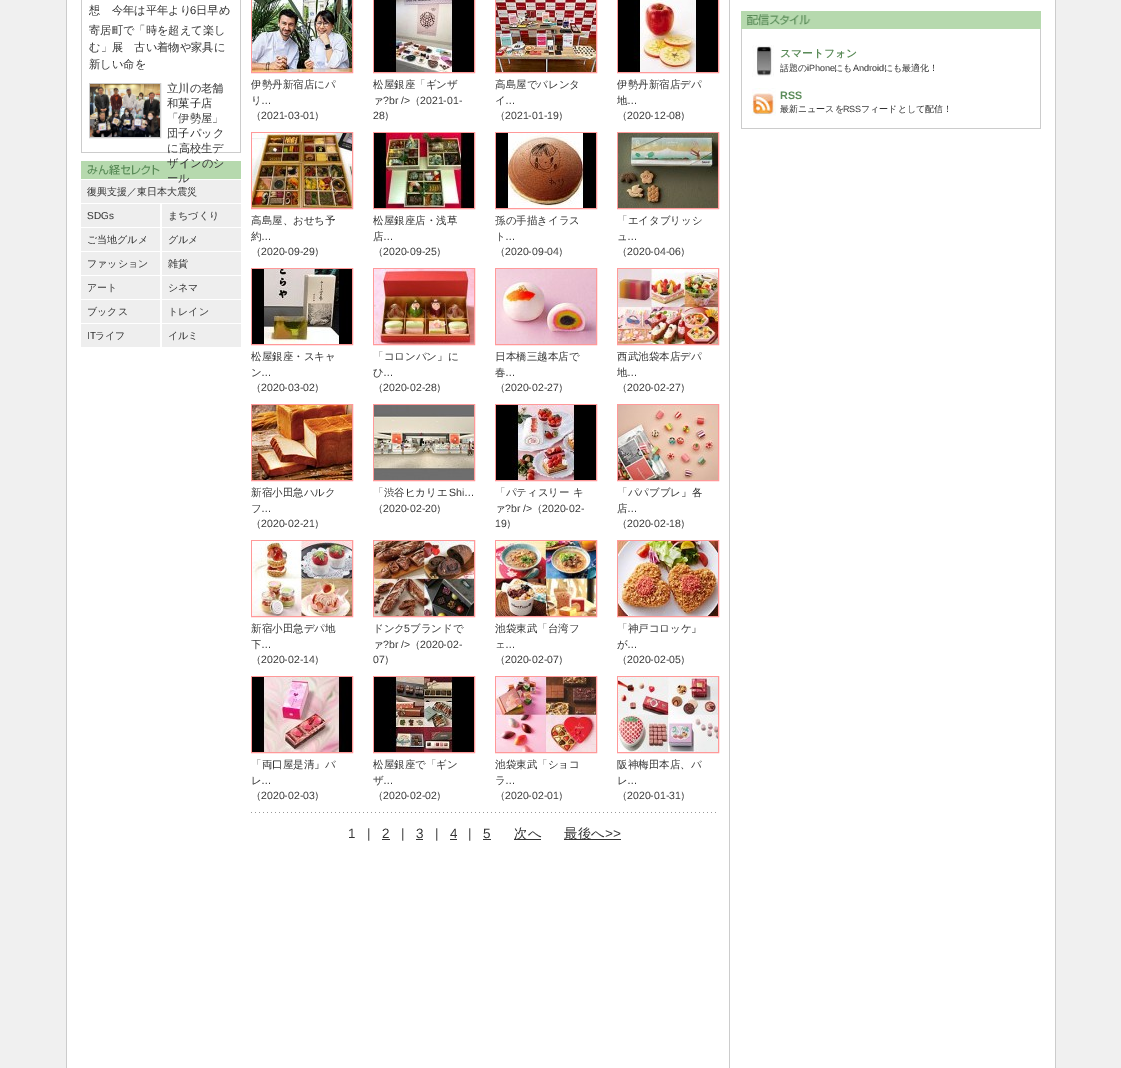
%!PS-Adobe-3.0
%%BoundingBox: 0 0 1121 1068
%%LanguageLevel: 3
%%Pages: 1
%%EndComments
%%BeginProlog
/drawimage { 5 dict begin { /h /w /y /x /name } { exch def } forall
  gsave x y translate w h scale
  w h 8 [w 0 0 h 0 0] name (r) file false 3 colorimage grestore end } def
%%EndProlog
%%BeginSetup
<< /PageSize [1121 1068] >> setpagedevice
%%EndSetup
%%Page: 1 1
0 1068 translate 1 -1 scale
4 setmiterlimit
0.941 setgray
0 0 1121 1068 rectfill
1 setgray
67 0 988 1068 rectfill
0.8 setgray
1055 0 1 1068 rectfill
66 0 1 1068 rectfill
729 0 1 1068 rectfill
240 0 1 153 rectfill
81 152 160 1 rectfill
81 0 1 153 rectfill
89.5 83.5 71 54 rectstroke
(images/1.raw) 90 84 70 53 drawimage
0.714 0.851 0.682 setrgbcolor
81 161 160 18 rectfill
(images/2.raw) 87 164 73 11 drawimage
0.933 setgray
81 180 160 23 rectfill
81 204 79 23 rectfill
162 204 79 23 rectfill
81 228 79 23 rectfill
162 228 79 23 rectfill
81 252 79 23 rectfill
162 252 79 23 rectfill
81 276 79 23 rectfill
162 276 79 23 rectfill
81 300 79 23 rectfill
162 300 79 23 rectfill
81 324 79 23 rectfill
162 324 79 23 rectfill
1 0.6 0.6 setrgbcolor
251.5 -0.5 101 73 rectstroke
(images/3.raw) 252 0 100 72 drawimage
373.5 -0.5 101 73 rectstroke
(images/4.raw) 374 0 100 72 drawimage
495.5 -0.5 101 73 rectstroke
(images/5.raw) 496 0 100 72 drawimage
617.5 -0.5 101 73 rectstroke
(images/6.raw) 618 0 100 72 drawimage
251.5 132.5 101 76 rectstroke
(images/7.raw) 252 133 100 75 drawimage
373.5 132.5 101 76 rectstroke
(images/8.raw) 374 133 100 75 drawimage
495.5 132.5 101 76 rectstroke
(images/9.raw) 496 133 100 75 drawimage
617.5 132.5 101 76 rectstroke
(images/10.raw) 618 133 100 75 drawimage
251.5 268.5 101 76 rectstroke
(images/11.raw) 252 269 100 75 drawimage
373.5 268.5 101 76 rectstroke
(images/12.raw) 374 269 100 75 drawimage
495.5 268.5 101 76 rectstroke
(images/13.raw) 496 269 100 75 drawimage
617.5 268.5 101 76 rectstroke
(images/14.raw) 618 269 100 75 drawimage
251.5 404.5 101 76 rectstroke
(images/15.raw) 252 405 100 75 drawimage
373.5 404.5 101 76 rectstroke
(images/16.raw) 374 405 100 75 drawimage
495.5 404.5 101 76 rectstroke
(images/17.raw) 496 405 100 75 drawimage
617.5 404.5 101 76 rectstroke
(images/18.raw) 618 405 100 75 drawimage
251.5 540.5 101 76 rectstroke
(images/19.raw) 252 541 100 75 drawimage
373.5 540.5 101 76 rectstroke
(images/20.raw) 374 541 100 75 drawimage
495.5 540.5 101 76 rectstroke
(images/21.raw) 496 541 100 75 drawimage
617.5 540.5 101 76 rectstroke
(images/22.raw) 618 541 100 75 drawimage
251.5 676.5 101 76 rectstroke
(images/23.raw) 252 677 100 75 drawimage
373.5 676.5 101 76 rectstroke
(images/24.raw) 374 677 100 75 drawimage
495.5 676.5 101 76 rectstroke
(images/25.raw) 496 677 100 75 drawimage
617.5 676.5 101 76 rectstroke
(images/26.raw) 618 677 100 75 drawimage
(images/27.raw) 251 812 465 1 drawimage
0.2 setgray
382 839 8 1 rectfill
416 839 7 1 rectfill
450 839 7 1 rectfill
483 839 8 1 rectfill
514 839 27 1 rectfill
564 839 57 1 rectfill
0.714 0.851 0.682 setrgbcolor
741 11 300 18 rectfill
(images/28.raw) 747 14 64 12 drawimage
0.8 setgray
1040 29 1 100 rectfill
741 128 300 1 rectfill
741 29 1 100 rectfill
(images/29.raw) 752 45 22 32 drawimage
(images/30.raw) 752 88 24 28 drawimage
/WenQuanYiZenHei-Medium [11.25 0 0 -11.25 0 0] selectfont
0.2 setgray
89 14 moveto (想　今年は平年より) show
/LiberationSans-Regular [11.25 0 0 -11.25 0 0] selectfont
190 14 moveto (6) show
/WenQuanYiZenHei-Medium [11.25 0 0 -11.25 0 0] selectfont
196 14 moveto (日早め) show
89 34 moveto (寄居町で「時を超えて楽し) show
89 51 moveto (む」展　古い着物や家具に) show
89 68 moveto (新しい命を) show
167 92 moveto (立川の老舗) show
167 107 moveto (和菓子店) show
167 122 moveto (「伊勢屋」) show
167 137 moveto (団子パック) show
167 152 moveto (に高校生デ) show
167 167 moveto (ザインのシ) show
167 182 moveto (ール) show
/WenQuanYiZenHei-Medium [10 0 0 -10 0 0] selectfont
87 195 moveto (復興支援／東日本大震災) show
/LiberationSans-Regular [10 0 0 -10 0 0] selectfont
87 219 moveto (SDGs) show
/WenQuanYiZenHei-Medium [10 0 0 -10 0 0] selectfont
168 219 moveto (まちづくり) show
87 243 moveto (ご当地グルメ) show
168 243 moveto (グルメ) show
87 267 moveto (ファッション) show
168 267 moveto (雑貨) show
87 291 moveto (アート) show
168 291 moveto (シネマ) show
87 315 moveto (ブックス) show
168 315 moveto (トレイン) show
/LiberationSans-Regular [10 0 0 -10 0 0] selectfont
87 339 moveto (IT) show
/WenQuanYiZenHei-Medium [10 0 0 -10 0 0] selectfont
95 339 moveto (ライフ) show
168 339 moveto (イルミ) show
/WenQuanYiZenHei-Medium [10.5 0 0 -10.5 0 0] selectfont
251 88 moveto (伊勢丹新宿店にパ) show
251 104 moveto (リ) show
/LiberationSans-Regular [10.5 0 0 -10.5 0 0] selectfont
261 104 moveto (…) show
/WenQuanYiZenHei-Medium [10.5 0 0 -10.5 0 0] selectfont
251 119 moveto (（) show
/LiberationSans-Regular [10.5 0 0 -10.5 0 0] selectfont
261 119 moveto (2021-03-01) show
/WenQuanYiZenHei-Medium [10.5 0 0 -10.5 0 0] selectfont
314 119 moveto (）) show
373 88 moveto (松屋銀座「ギンザ) show
373 104 moveto (ァ) show
/LiberationSans-Regular [10.5 0 0 -10.5 0 0] selectfont
383 104 moveto (?br />) show
/WenQuanYiZenHei-Medium [10.5 0 0 -10.5 0 0] selectfont
410 104 moveto (（) show
/LiberationSans-Regular [10.5 0 0 -10.5 0 0] selectfont
420 104 moveto (2021-01-) show
373 119 moveto (28) show
/WenQuanYiZenHei-Medium [10.5 0 0 -10.5 0 0] selectfont
384 119 moveto (）) show
495 88 moveto (高島屋でバレンタ) show
495 104 moveto (イ) show
/LiberationSans-Regular [10.5 0 0 -10.5 0 0] selectfont
505 104 moveto (…) show
/WenQuanYiZenHei-Medium [10.5 0 0 -10.5 0 0] selectfont
495 119 moveto (（) show
/LiberationSans-Regular [10.5 0 0 -10.5 0 0] selectfont
505 119 moveto (2021-01-19) show
/WenQuanYiZenHei-Medium [10.5 0 0 -10.5 0 0] selectfont
558 119 moveto (）) show
617 88 moveto (伊勢丹新宿店デパ) show
617 104 moveto (地) show
/LiberationSans-Regular [10.5 0 0 -10.5 0 0] selectfont
627 104 moveto (…) show
/WenQuanYiZenHei-Medium [10.5 0 0 -10.5 0 0] selectfont
617 119 moveto (（) show
/LiberationSans-Regular [10.5 0 0 -10.5 0 0] selectfont
627 119 moveto (2020-12-08) show
/WenQuanYiZenHei-Medium [10.5 0 0 -10.5 0 0] selectfont
680 119 moveto (）) show
251 224 moveto (高島屋、おせち予) show
251 240 moveto (約) show
/LiberationSans-Regular [10.5 0 0 -10.5 0 0] selectfont
261 240 moveto (…) show
/WenQuanYiZenHei-Medium [10.5 0 0 -10.5 0 0] selectfont
251 255 moveto (（) show
/LiberationSans-Regular [10.5 0 0 -10.5 0 0] selectfont
261 255 moveto (2020-09-29) show
/WenQuanYiZenHei-Medium [10.5 0 0 -10.5 0 0] selectfont
314 255 moveto (）) show
373 224 moveto (松屋銀座店・浅草) show
373 240 moveto (店) show
/LiberationSans-Regular [10.5 0 0 -10.5 0 0] selectfont
383 240 moveto (…) show
/WenQuanYiZenHei-Medium [10.5 0 0 -10.5 0 0] selectfont
373 255 moveto (（) show
/LiberationSans-Regular [10.5 0 0 -10.5 0 0] selectfont
383 255 moveto (2020-09-25) show
/WenQuanYiZenHei-Medium [10.5 0 0 -10.5 0 0] selectfont
436 255 moveto (）) show
495 224 moveto (孫の手描きイラス) show
495 240 moveto (ト) show
/LiberationSans-Regular [10.5 0 0 -10.5 0 0] selectfont
505 240 moveto (…) show
/WenQuanYiZenHei-Medium [10.5 0 0 -10.5 0 0] selectfont
495 255 moveto (（) show
/LiberationSans-Regular [10.5 0 0 -10.5 0 0] selectfont
505 255 moveto (2020-09-04) show
/WenQuanYiZenHei-Medium [10.5 0 0 -10.5 0 0] selectfont
558 255 moveto (）) show
617 224 moveto (「エイタブリッシ) show
617 240 moveto (ュ) show
/LiberationSans-Regular [10.5 0 0 -10.5 0 0] selectfont
627 240 moveto (…) show
/WenQuanYiZenHei-Medium [10.5 0 0 -10.5 0 0] selectfont
617 255 moveto (（) show
/LiberationSans-Regular [10.5 0 0 -10.5 0 0] selectfont
627 255 moveto (2020-04-06) show
/WenQuanYiZenHei-Medium [10.5 0 0 -10.5 0 0] selectfont
680 255 moveto (）) show
251 360 moveto (松屋銀座・スキャ) show
251 376 moveto (ン) show
/LiberationSans-Regular [10.5 0 0 -10.5 0 0] selectfont
261 376 moveto (…) show
/WenQuanYiZenHei-Medium [10.5 0 0 -10.5 0 0] selectfont
251 391 moveto (（) show
/LiberationSans-Regular [10.5 0 0 -10.5 0 0] selectfont
261 391 moveto (2020-03-02) show
/WenQuanYiZenHei-Medium [10.5 0 0 -10.5 0 0] selectfont
314 391 moveto (）) show
373 360 moveto (「コロンバン」に) show
373 376 moveto (ひ) show
/LiberationSans-Regular [10.5 0 0 -10.5 0 0] selectfont
383 376 moveto (…) show
/WenQuanYiZenHei-Medium [10.5 0 0 -10.5 0 0] selectfont
373 391 moveto (（) show
/LiberationSans-Regular [10.5 0 0 -10.5 0 0] selectfont
383 391 moveto (2020-02-28) show
/WenQuanYiZenHei-Medium [10.5 0 0 -10.5 0 0] selectfont
436 391 moveto (）) show
495 360 moveto (日本橋三越本店で) show
495 376 moveto (春) show
/LiberationSans-Regular [10.5 0 0 -10.5 0 0] selectfont
505 376 moveto (…) show
/WenQuanYiZenHei-Medium [10.5 0 0 -10.5 0 0] selectfont
495 391 moveto (（) show
/LiberationSans-Regular [10.5 0 0 -10.5 0 0] selectfont
505 391 moveto (2020-02-27) show
/WenQuanYiZenHei-Medium [10.5 0 0 -10.5 0 0] selectfont
558 391 moveto (）) show
617 360 moveto (西武池袋本店デパ) show
617 376 moveto (地) show
/LiberationSans-Regular [10.5 0 0 -10.5 0 0] selectfont
627 376 moveto (…) show
/WenQuanYiZenHei-Medium [10.5 0 0 -10.5 0 0] selectfont
617 391 moveto (（) show
/LiberationSans-Regular [10.5 0 0 -10.5 0 0] selectfont
627 391 moveto (2020-02-27) show
/WenQuanYiZenHei-Medium [10.5 0 0 -10.5 0 0] selectfont
680 391 moveto (）) show
251 496 moveto (新宿小田急ハルク) show
251 512 moveto (フ) show
/LiberationSans-Regular [10.5 0 0 -10.5 0 0] selectfont
261 512 moveto (…) show
/WenQuanYiZenHei-Medium [10.5 0 0 -10.5 0 0] selectfont
251 527 moveto (（) show
/LiberationSans-Regular [10.5 0 0 -10.5 0 0] selectfont
261 527 moveto (2020-02-21) show
/WenQuanYiZenHei-Medium [10.5 0 0 -10.5 0 0] selectfont
314 527 moveto (）) show
373 496 moveto (「渋谷ヒカリエ) show
/LiberationSans-Regular [10.5 0 0 -10.5 0 0] selectfont
449 496 moveto (Shi…) show
/WenQuanYiZenHei-Medium [10.5 0 0 -10.5 0 0] selectfont
373 512 moveto (（) show
/LiberationSans-Regular [10.5 0 0 -10.5 0 0] selectfont
383 512 moveto (2020-02-20) show
/WenQuanYiZenHei-Medium [10.5 0 0 -10.5 0 0] selectfont
436 512 moveto (）) show
495 496 moveto (「パティスリー キ) show
495 512 moveto (ァ) show
/LiberationSans-Regular [10.5 0 0 -10.5 0 0] selectfont
505 512 moveto (?br />) show
/WenQuanYiZenHei-Medium [10.5 0 0 -10.5 0 0] selectfont
532 512 moveto (（) show
/LiberationSans-Regular [10.5 0 0 -10.5 0 0] selectfont
542 512 moveto (2020-02-) show
495 527 moveto (19) show
/WenQuanYiZenHei-Medium [10.5 0 0 -10.5 0 0] selectfont
506 527 moveto (）) show
617 496 moveto (「パパブブレ」各) show
617 512 moveto (店) show
/LiberationSans-Regular [10.5 0 0 -10.5 0 0] selectfont
627 512 moveto (…) show
/WenQuanYiZenHei-Medium [10.5 0 0 -10.5 0 0] selectfont
617 527 moveto (（) show
/LiberationSans-Regular [10.5 0 0 -10.5 0 0] selectfont
627 527 moveto (2020-02-18) show
/WenQuanYiZenHei-Medium [10.5 0 0 -10.5 0 0] selectfont
680 527 moveto (）) show
251 632 moveto (新宿小田急デパ地) show
251 648 moveto (下) show
/LiberationSans-Regular [10.5 0 0 -10.5 0 0] selectfont
261 648 moveto (…) show
/WenQuanYiZenHei-Medium [10.5 0 0 -10.5 0 0] selectfont
251 663 moveto (（) show
/LiberationSans-Regular [10.5 0 0 -10.5 0 0] selectfont
261 663 moveto (2020-02-14) show
/WenQuanYiZenHei-Medium [10.5 0 0 -10.5 0 0] selectfont
314 663 moveto (）) show
373 632 moveto (ドンク) show
/LiberationSans-Regular [10.5 0 0 -10.5 0 0] selectfont
404 632 moveto (5) show
/WenQuanYiZenHei-Medium [10.5 0 0 -10.5 0 0] selectfont
410 632 moveto (ブランドで) show
373 648 moveto (ァ) show
/LiberationSans-Regular [10.5 0 0 -10.5 0 0] selectfont
383 648 moveto (?br />) show
/WenQuanYiZenHei-Medium [10.5 0 0 -10.5 0 0] selectfont
410 648 moveto (（) show
/LiberationSans-Regular [10.5 0 0 -10.5 0 0] selectfont
420 648 moveto (2020-02-) show
373 663 moveto (07) show
/WenQuanYiZenHei-Medium [10.5 0 0 -10.5 0 0] selectfont
384 663 moveto (）) show
495 632 moveto (池袋東武「台湾フ) show
495 648 moveto (ェ) show
/LiberationSans-Regular [10.5 0 0 -10.5 0 0] selectfont
505 648 moveto (…) show
/WenQuanYiZenHei-Medium [10.5 0 0 -10.5 0 0] selectfont
495 663 moveto (（) show
/LiberationSans-Regular [10.5 0 0 -10.5 0 0] selectfont
505 663 moveto (2020-02-07) show
/WenQuanYiZenHei-Medium [10.5 0 0 -10.5 0 0] selectfont
558 663 moveto (）) show
617 632 moveto (「神戸コロッケ」) show
617 648 moveto (が) show
/LiberationSans-Regular [10.5 0 0 -10.5 0 0] selectfont
627 648 moveto (…) show
/WenQuanYiZenHei-Medium [10.5 0 0 -10.5 0 0] selectfont
617 663 moveto (（) show
/LiberationSans-Regular [10.5 0 0 -10.5 0 0] selectfont
627 663 moveto (2020-02-05) show
/WenQuanYiZenHei-Medium [10.5 0 0 -10.5 0 0] selectfont
680 663 moveto (）) show
251 768 moveto (「両口屋是清」バ) show
251 784 moveto (レ) show
/LiberationSans-Regular [10.5 0 0 -10.5 0 0] selectfont
261 784 moveto (…) show
/WenQuanYiZenHei-Medium [10.5 0 0 -10.5 0 0] selectfont
251 799 moveto (（) show
/LiberationSans-Regular [10.5 0 0 -10.5 0 0] selectfont
261 799 moveto (2020-02-03) show
/WenQuanYiZenHei-Medium [10.5 0 0 -10.5 0 0] selectfont
314 799 moveto (）) show
373 768 moveto (松屋銀座で「ギン) show
373 784 moveto (ザ) show
/LiberationSans-Regular [10.5 0 0 -10.5 0 0] selectfont
383 784 moveto (…) show
/WenQuanYiZenHei-Medium [10.5 0 0 -10.5 0 0] selectfont
373 799 moveto (（) show
/LiberationSans-Regular [10.5 0 0 -10.5 0 0] selectfont
383 799 moveto (2020-02-02) show
/WenQuanYiZenHei-Medium [10.5 0 0 -10.5 0 0] selectfont
436 799 moveto (）) show
495 768 moveto (池袋東武「ショコ) show
495 784 moveto (ラ) show
/LiberationSans-Regular [10.5 0 0 -10.5 0 0] selectfont
505 784 moveto (…) show
/WenQuanYiZenHei-Medium [10.5 0 0 -10.5 0 0] selectfont
495 799 moveto (（) show
/LiberationSans-Regular [10.5 0 0 -10.5 0 0] selectfont
505 799 moveto (2020-02-01) show
/WenQuanYiZenHei-Medium [10.5 0 0 -10.5 0 0] selectfont
558 799 moveto (）) show
617 768 moveto (阪神梅田本店、バ) show
617 784 moveto (レ) show
/LiberationSans-Regular [10.5 0 0 -10.5 0 0] selectfont
627 784 moveto (…) show
/WenQuanYiZenHei-Medium [10.5 0 0 -10.5 0 0] selectfont
617 799 moveto (（) show
/LiberationSans-Regular [10.5 0 0 -10.5 0 0] selectfont
627 799 moveto (2020-01-31) show
/WenQuanYiZenHei-Medium [10.5 0 0 -10.5 0 0] selectfont
680 799 moveto (）) show
/LiberationSans-Regular [13.5 0 0 -13.5 0 0] selectfont
348 838 moveto (1   |) show
382 838 moveto (2) show
401 838 moveto (|) show
416 838 moveto (3) show
435 838 moveto (|) show
450 838 moveto (4) show
468 838 moveto (|) show
483 838 moveto (5) show
/WenQuanYiZenHei-Medium [13.5 0 0 -13.5 0 0] selectfont
514 838 moveto (次へ) show
564 838 moveto (最後へ) show
/LiberationSans-Regular [13.5 0 0 -13.5 0 0] selectfont
605 838 moveto (>>) show
/WenQuanYiZenHei-Bold [10.75 0 0 -10.75 0 0] selectfont
0.353 0.545 0.345 setrgbcolor
780 57 moveto (スマートフォン) show
/WenQuanYiZenHei-Medium [9 0 0 -9 0 0] selectfont
0.2 setgray
780 71 moveto (話題の) show
/LiberationSans-Regular [9 0 0 -9 0 0] selectfont
807 71 moveto (iPhone) show
/WenQuanYiZenHei-Medium [9 0 0 -9 0 0] selectfont
834 71 moveto (にも) show
/LiberationSans-Regular [9 0 0 -9 0 0] selectfont
853 71 moveto (Android) show
/WenQuanYiZenHei-Medium [9 0 0 -9 0 0] selectfont
884 71 moveto (にも最適化！) show
/LiberationSans-Bold [10.75 0 0 -10.75 0 0] selectfont
0.353 0.545 0.345 setrgbcolor
780 99 moveto (RSS) show
/WenQuanYiZenHei-Medium [9 0 0 -9 0 0] selectfont
0.2 setgray
780 112 moveto (最新ニュースを) show
/LiberationSans-Regular [9 0 0 -9 0 0] selectfont
843 112 moveto (RSS) show
/WenQuanYiZenHei-Medium [9 0 0 -9 0 0] selectfont
861 112 moveto (フィードとして配信！) show
showpage
%%EOF
